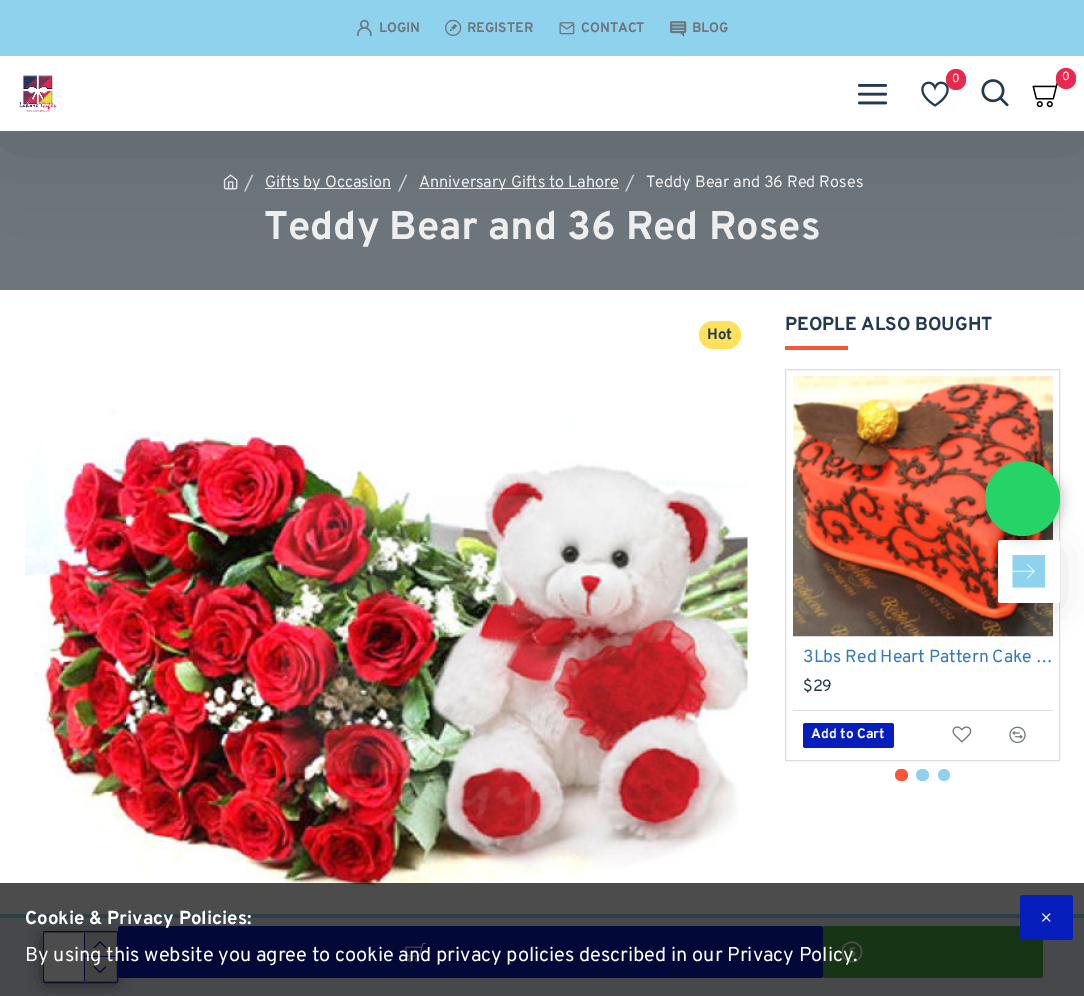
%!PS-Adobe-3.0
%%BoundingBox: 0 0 1084 996
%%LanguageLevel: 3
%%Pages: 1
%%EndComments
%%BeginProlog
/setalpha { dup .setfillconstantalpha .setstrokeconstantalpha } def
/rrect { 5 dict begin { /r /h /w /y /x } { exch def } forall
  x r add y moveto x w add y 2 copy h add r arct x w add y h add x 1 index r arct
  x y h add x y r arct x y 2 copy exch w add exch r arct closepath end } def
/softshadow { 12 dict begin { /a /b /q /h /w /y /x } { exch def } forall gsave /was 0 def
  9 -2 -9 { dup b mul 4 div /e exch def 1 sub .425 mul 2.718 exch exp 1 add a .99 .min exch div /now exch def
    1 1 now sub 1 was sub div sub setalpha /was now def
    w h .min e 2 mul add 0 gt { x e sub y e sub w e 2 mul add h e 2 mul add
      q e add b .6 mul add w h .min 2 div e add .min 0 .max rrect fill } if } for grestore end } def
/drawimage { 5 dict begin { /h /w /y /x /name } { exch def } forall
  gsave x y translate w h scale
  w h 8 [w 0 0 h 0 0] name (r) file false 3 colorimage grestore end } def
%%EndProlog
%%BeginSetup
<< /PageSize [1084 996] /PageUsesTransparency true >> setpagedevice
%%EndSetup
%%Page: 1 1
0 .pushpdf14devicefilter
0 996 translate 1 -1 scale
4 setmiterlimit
1 setgray
0 0 1084 996 rectfill
0.427 0.463 0.49 setrgbcolor
0 131 1084 159 rectfill
(images/10.raw) 223 174 15 16 drawimage
0.933 setgray
265 188 126 1 rectfill
419 188 200 1 rectfill
0 setgray
13 69 1060 50 0 53 0.2 softshadow
0.561 0.824 0.933 setrgbcolor
0 0 1084 56 rectfill
(images/1.raw) 357 19 15 17 drawimage
(images/2.raw) 445 19 17 17 drawimage
(images/3.raw) 559 22 16 13 drawimage
(images/4.raw) 670 21 17 16 drawimage
1 setgray
0 56 1084 75 rectfill
(images/5.raw) 19 75 38 38 drawimage
(images/6.raw) 921 81 28 26 drawimage
0.91 0.157 0.302 setrgbcolor
946 69 20 21 10 rrect fill
(images/7.raw) 1032 81 26 27 drawimage
1056 68 20 21 10 rrect fill
(images/8.raw) 857 84 31 21 drawimage
(images/9.raw) 981 79 28 28 drawimage
0.996 0.882 0.357 setrgbcolor
699 321 42 28 14 rrect fill
(images/11.raw) 25 409 723 484 drawimage
0.929 0.949 0.996 setrgbcolor
0 918 1084 78 rectfill
0.561 0.824 0.933 setrgbcolor
0 914 1084 4 rectfill
0.024 0.118 0.733 setrgbcolor
43.5 931.5 74 51 2 rrect stroke
0.333 setgray
46 938 68 43 0 9.5 1 softshadow
1 setgray
44 933 72 48 2.5 rrect fill
0.024 0.118 0.733 setrgbcolor
84 933 1 48 rectfill
0.867 setgray
85 933 31 23 rectfill
0.024 0.118 0.733 setrgbcolor
85 956 31 1 rectfill
(images/12.raw) 93 941 14 8 drawimage
0.867 setgray
85 958 31 23 rectfill
(images/13.raw) 93 966 14 8 drawimage
0.024 0.118 0.733 setrgbcolor
118 926 705 52 2.5 rrect fill
(images/14.raw) 405 942 22 20 drawimage
0.306 0.694 0.259 setrgbcolor
823 926 220 52 2.5 rrect fill
(images/15.raw) 841 941 22 22 drawimage
0.973 0.337 0.224 setrgbcolor
785 346 63 4 rectfill
0.867 setgray
785.5 369.5 274 391 rectstroke
(images/17.raw) 793 376 260 261 drawimage
0 setgray
1004 553 50 50 0 19 0.15 softshadow
1 setgray
998 540 62 63 2.5 rrect fill
(images/16.raw) 1012 555 33 33 drawimage
0.867 setgray
793 710 260 1 rectfill
0.024 0.118 0.733 setrgbcolor
803 723 91 25 2.5 rrect fill
(images/18.raw) 952 726 20 17 drawimage
(images/19.raw) 1009 726 17 17 drawimage
0.973 0.337 0.224 setrgbcolor
895 769 13 12 6 rrect fill
0.561 0.824 0.933 setrgbcolor
916 769 13 12 6 rrect fill
newpath 944 775 6 0 360 arc closepath fill
0 setgray
988 464 75 75 37.5 6 0.2 softshadow
0.145 0.827 0.4 setrgbcolor
newpath 1022.5 498.5 37.5 0 360 arc closepath fill
0.7 setalpha
0 setgray
0 883 1084 113 rectfill
1 setalpha
0.024 0.118 0.733 setrgbcolor
1020 895 53 45 2.5 rrect fill
(images/20.raw) 1042 913 9 9 drawimage
/Overpass-Bold [13.75 0 0 -13.75 0 0] selectfont
0.427 0.463 0.49 setrgbcolor
379 32 moveto (LOGIN) show
467 32 moveto (REGISTER) show
581 32 moveto (CONTACT) show
692 32 moveto (BLOG) show
/Overpass-Regular [12 0 0 -12 0 0] selectfont
1 setgray
952 82 moveto (0) show
1062 80 moveto (0) show
/Overpass-Regular [20 0 0 -20 0 0] selectfont
0.8 setgray
244 189 moveto (/) show
/Overpass-Regular [16.25 0 0 -16.25 0 0] selectfont
0.933 setgray
265 187 moveto (Gifts by Occasion) show
/Overpass-Regular [20 0 0 -20 0 0] selectfont
0.8 setgray
398 189 moveto (/) show
/Overpass-Regular [16.25 0 0 -16.25 0 0] selectfont
0.933 setgray
419 187 moveto (Anniversary Gifts to Lahore) show
/Overpass-Regular [20 0 0 -20 0 0] selectfont
0.8 setgray
625 189 moveto (/) show
/Overpass-Regular [16.25 0 0 -16.25 0 0] selectfont
0.933 setgray
646 187 moveto (Teddy Bear and 36 Red Roses) show
/Overpass-Bold [40 0 0 -40 0 0] selectfont
264 239 moveto (Teddy Bear and 36 Red Roses) show
/Overpass-Bold [15 0 0 -15 0 0] selectfont
0.137 0.22 0.318 setrgbcolor
707 339 moveto (Hot) show
/Overpass-Bold [18.75 0 0 -18.75 0 0] selectfont
785 330 moveto (PEOPLE ALSO BOUGHT) show
/Overpass-Regular [17.5 0 0 -17.5 0 0] selectfont
0.2 0.478 0.718 setrgbcolor
803 662 moveto (3Lbs Red Heart Pattern Cake …) show
/Overpass-Regular [16.25 0 0 -16.25 0 0] selectfont
0.137 0.22 0.318 setrgbcolor
803 691 moveto ($29) show
/Overpass-Bold [13.75 0 0 -13.75 0 0] selectfont
1 setgray
811 738 moveto (Add to Cart) show
/Overpass-Bold [18.75 0 0 -18.75 0 0] selectfont
25 924 moveto (Cookie & Privacy Policies:) show
/Overpass-Regular [20 0 0 -20 0 0] selectfont
25 961 moveto (By using this website you agree to cookie and privacy policies described in our Privacy Policy.) show
.poppdf14devicefilter showpage
%%EOF
